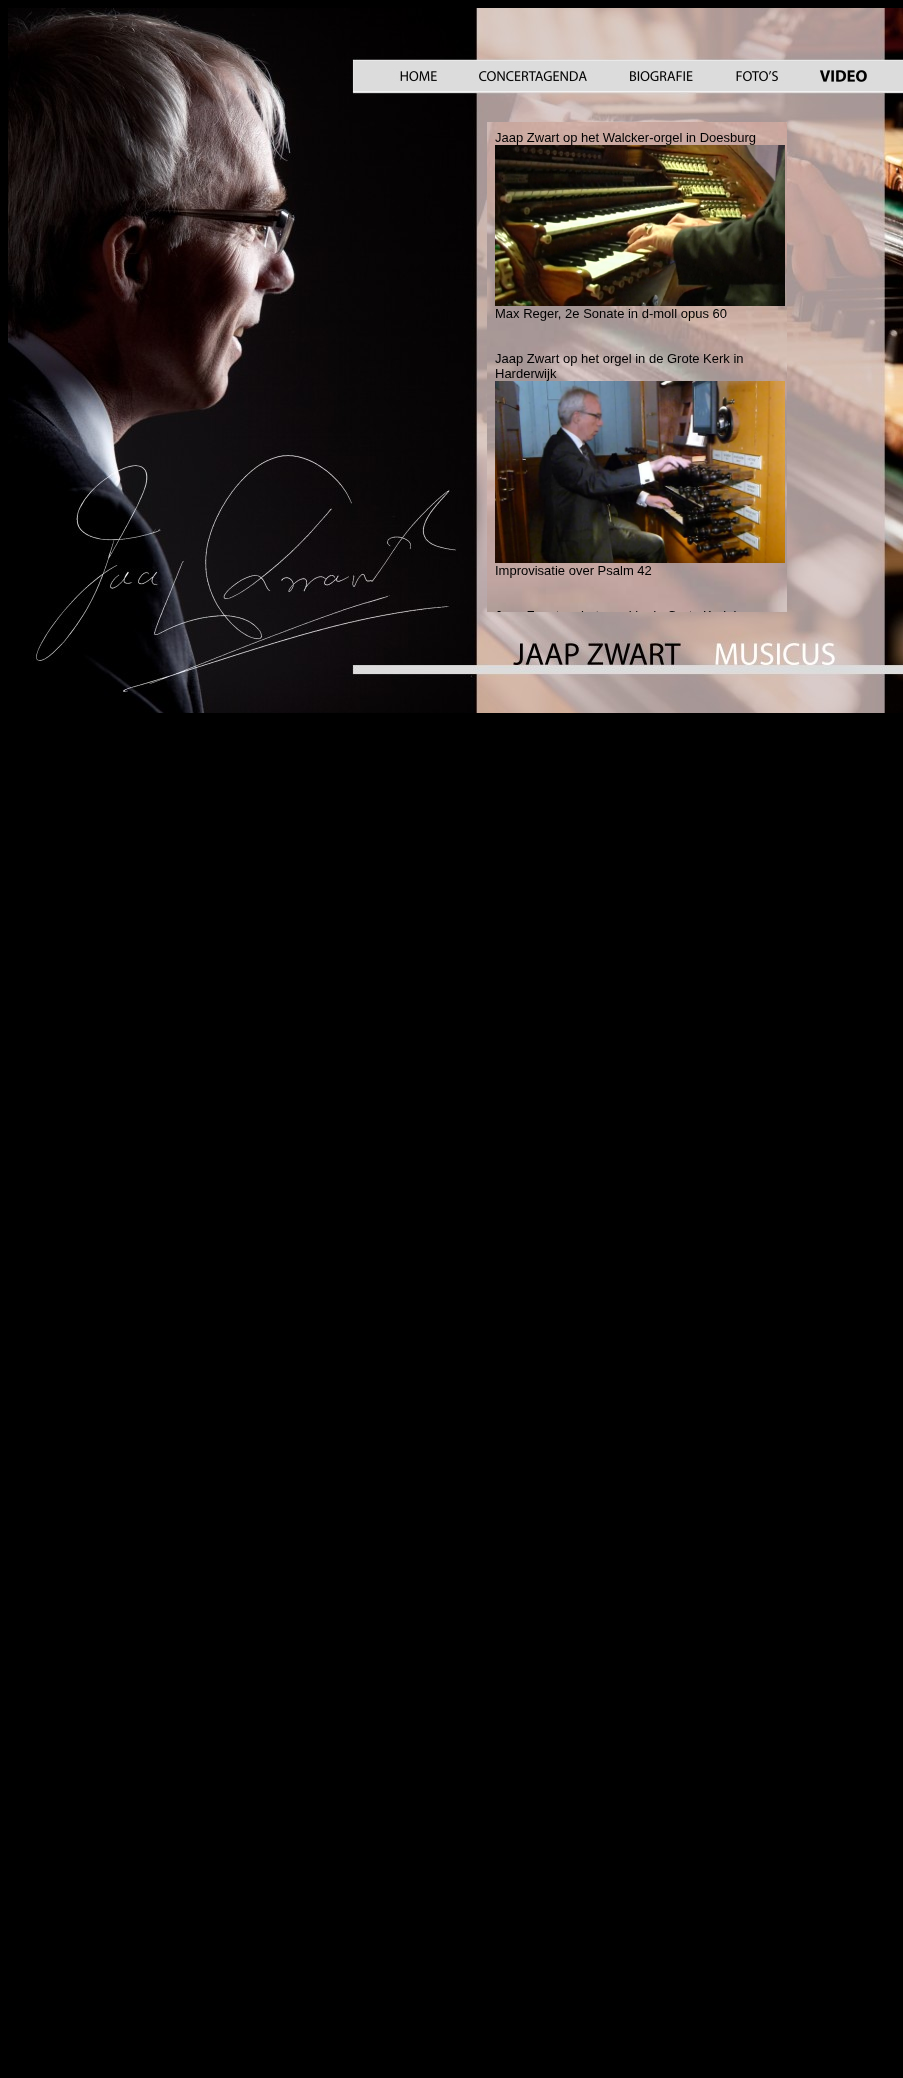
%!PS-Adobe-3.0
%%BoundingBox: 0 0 903 2078
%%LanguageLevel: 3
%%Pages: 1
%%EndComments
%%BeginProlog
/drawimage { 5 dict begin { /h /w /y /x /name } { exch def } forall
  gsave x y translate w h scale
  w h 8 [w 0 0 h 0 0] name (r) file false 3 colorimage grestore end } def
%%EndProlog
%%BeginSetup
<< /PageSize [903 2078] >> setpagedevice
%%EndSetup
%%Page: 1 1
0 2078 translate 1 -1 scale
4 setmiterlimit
0 setgray
0 0 903 2078 rectfill
(images/1.raw) 8 8 895 705 drawimage
(images/2.raw) 353 60 550 32 drawimage
(images/3.raw) 487 122 300 490 drawimage
showpage
%%EOF
